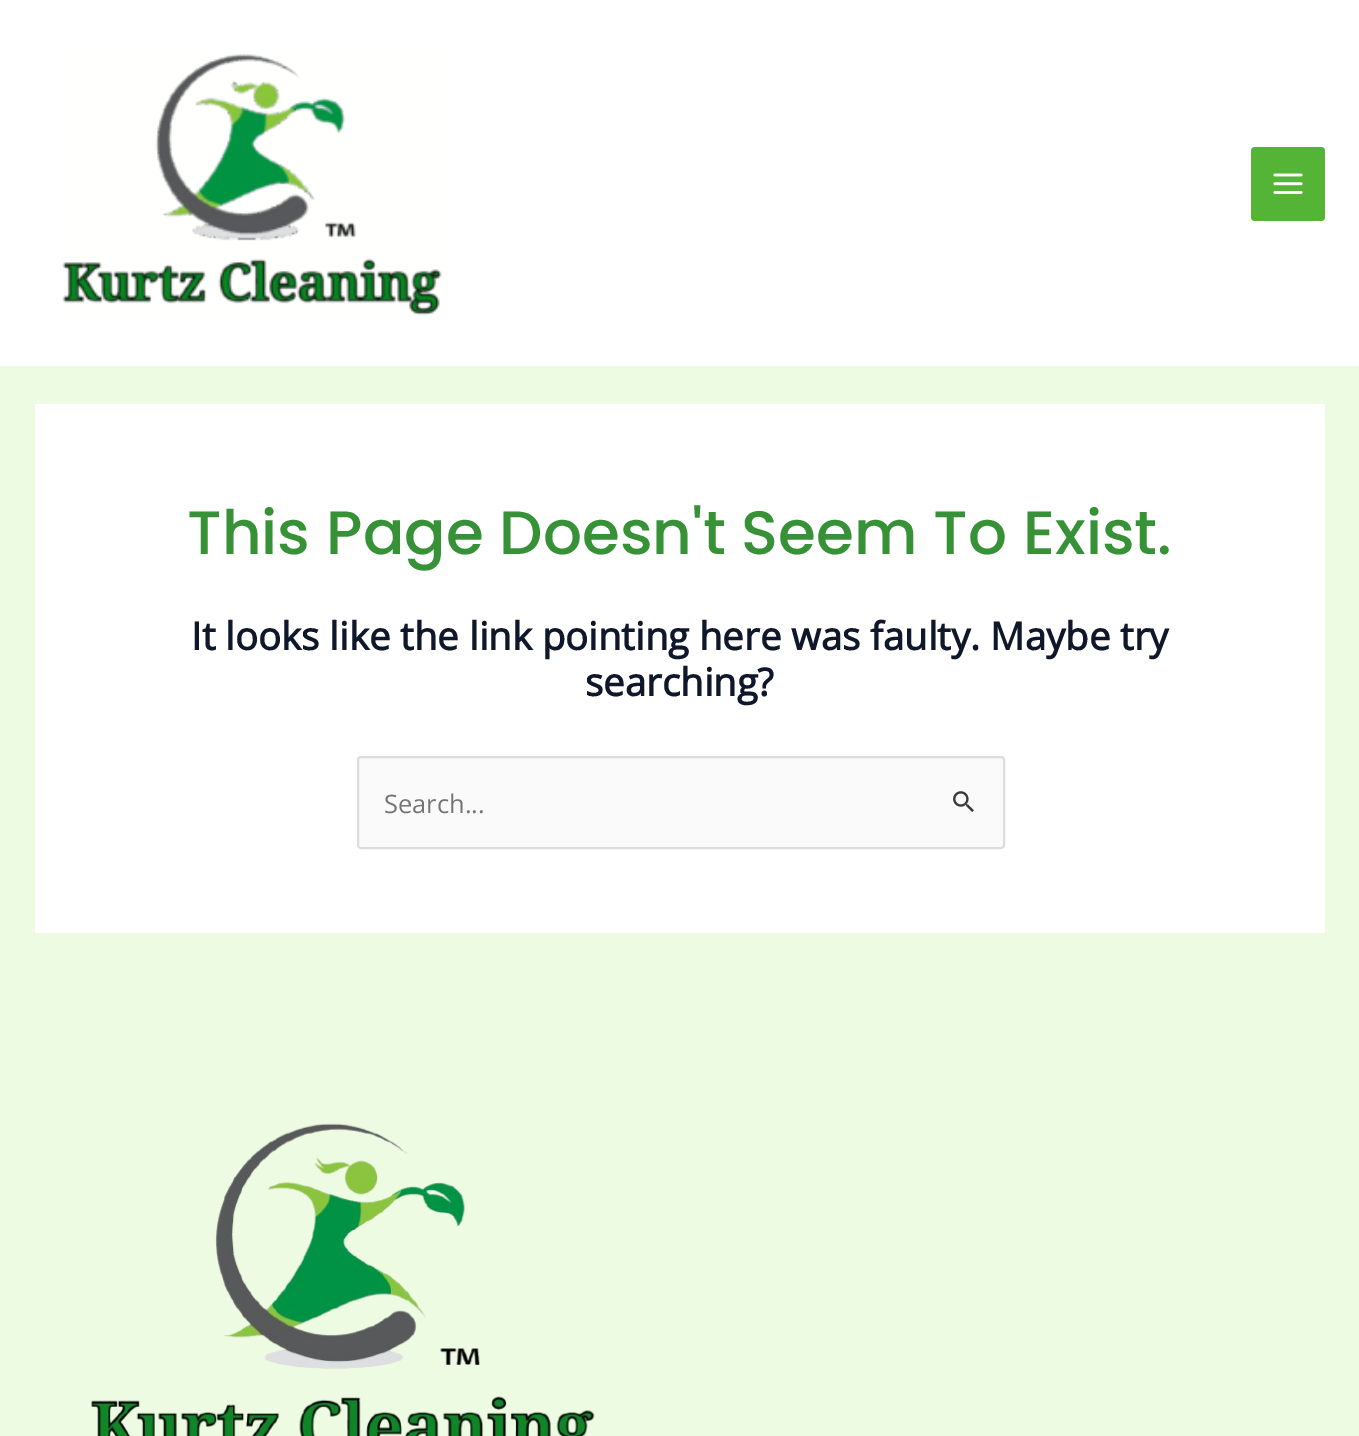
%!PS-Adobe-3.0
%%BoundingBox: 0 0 1359 1436
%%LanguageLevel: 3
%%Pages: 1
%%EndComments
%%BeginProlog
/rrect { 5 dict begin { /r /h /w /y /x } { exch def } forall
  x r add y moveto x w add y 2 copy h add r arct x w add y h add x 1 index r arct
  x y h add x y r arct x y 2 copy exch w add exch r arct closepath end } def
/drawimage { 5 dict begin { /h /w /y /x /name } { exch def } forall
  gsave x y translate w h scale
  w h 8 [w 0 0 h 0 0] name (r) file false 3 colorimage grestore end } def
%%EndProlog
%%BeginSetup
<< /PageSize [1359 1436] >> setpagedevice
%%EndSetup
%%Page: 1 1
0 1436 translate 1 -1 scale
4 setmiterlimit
0.929 0.984 0.886 setrgbcolor
0 0 1359 1436 rectfill
1 setgray
0 0 1359 366 rectfill
(images/1.raw) 62 54 380 262 drawimage
0.329 0.706 0.208 setrgbcolor
1251 147 74 74 4 rrect fill
(images/2.raw) 1273 173 30 21 drawimage
1 setgray
35 404 1290 529 rectfill
0.98 setgray
358 757 646 91 3 rrect gsave fill grestore
0.867 setgray
2 setlinewidth
stroke
(images/3.raw) 953 791 21 21 drawimage
(images/4.raw) 91 1123 504 313 drawimage
/Poppins-Medium [61.25 0 0 -61.25 0 0] selectfont
0.216 0.573 0.216 setrgbcolor
187 554 moveto (This Page Doesn't Seem To Exist.) show
/OpenSans-Bold [38.3 0 0 -38.3 0 0] selectfont
0.059 0.09 0.165 setrgbcolor
191 650 moveto (It looks like the link pointing here was faulty. Maybe try) show
585 696 moveto (searching?) show
/OpenSans-Regular [25.5 0 0 -25.5 0 0] selectfont
0.459 setgray
384 813 moveto (Search...) show
showpage
%%EOF
